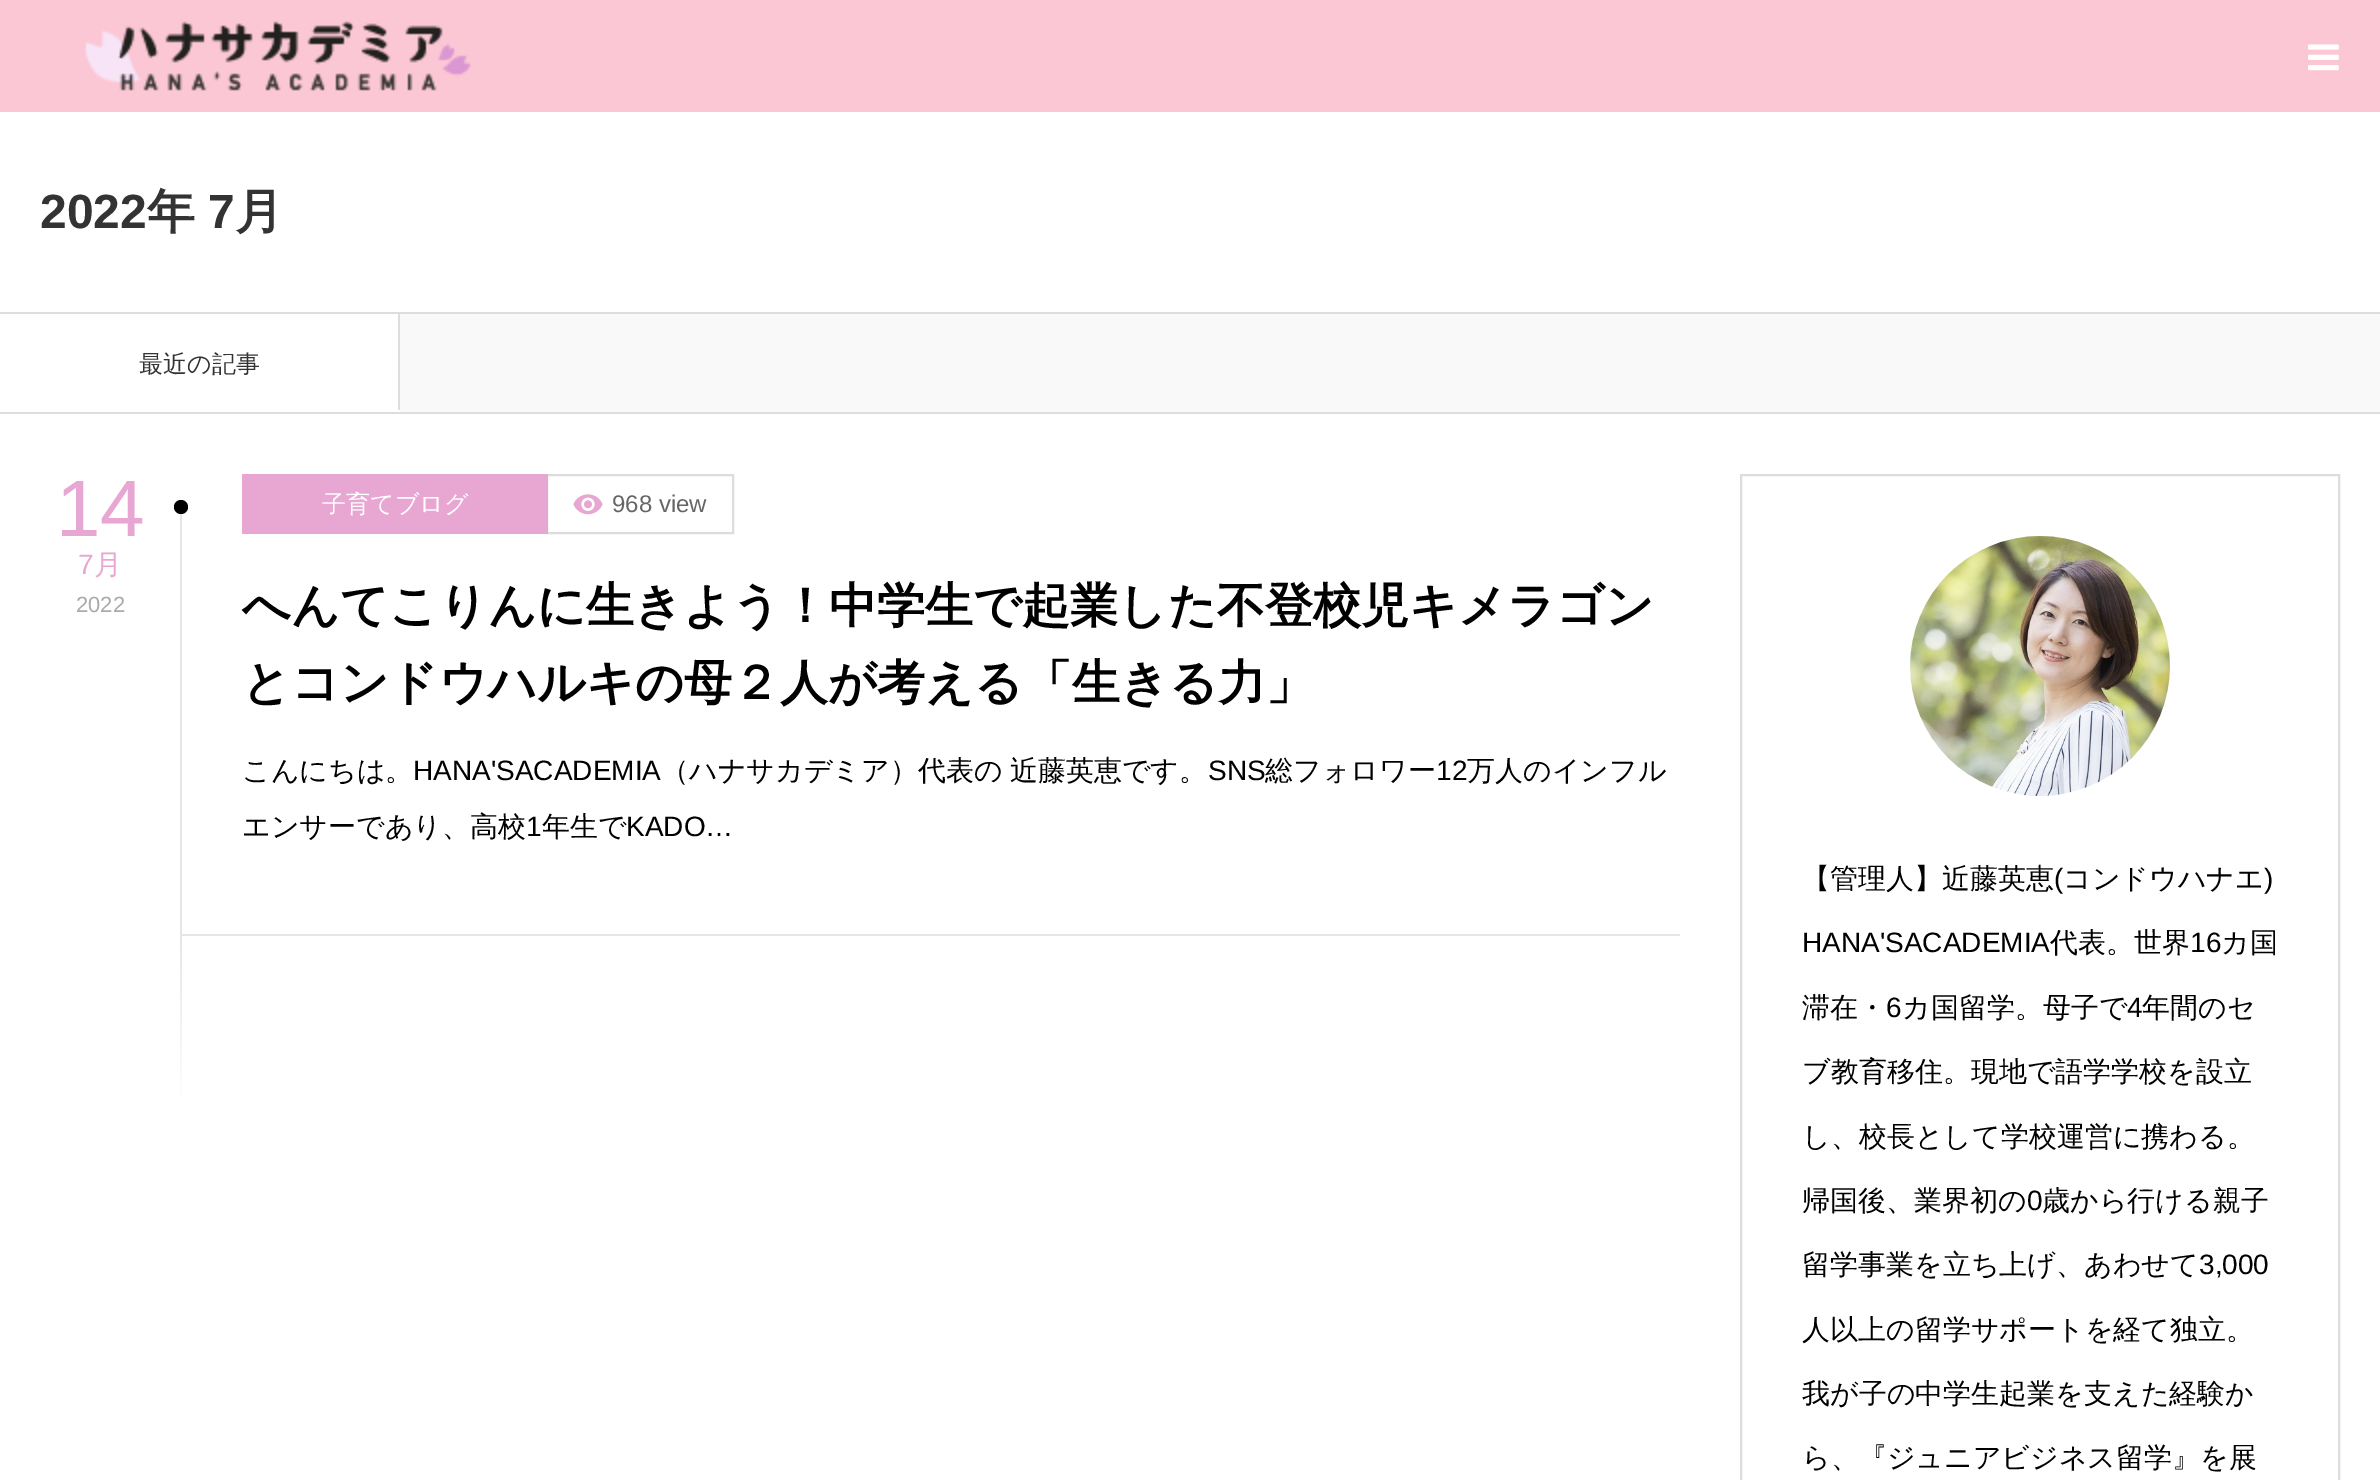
%!PS-Adobe-3.0
%%BoundingBox: 0 0 2380 1480
%%LanguageLevel: 3
%%Pages: 1
%%EndComments
%%BeginProlog
/drawimage { 5 dict begin { /h /w /y /x /name } { exch def } forall
  gsave x y translate w h scale
  w h 8 [w 0 0 h 0 0] name (r) file false 3 colorimage grestore end } def
%%EndProlog
%%BeginSetup
<< /PageSize [2380 1480] >> setpagedevice
%%EndSetup
%%Page: 1 1
0 1480 translate 1 -1 scale
4 setmiterlimit
1 setgray
0 0 2380 1480 rectfill
0.988 0.78 0.835 setrgbcolor
0 0 2380 112 rectfill
(images/1.raw) 85 21 386 70 drawimage
(images/2.raw) 2308 44 31 27 drawimage
0.867 setgray
0 312 2380 2 rectfill
0.976 setgray
400 314 1980 98 rectfill
0.867 setgray
0 412 2380 2 rectfill
398 312 2 100 rectfill
1 setgray
398 410 2 2 rectfill
0.902 setgray
180 934 1500 2 rectfill
180 513 2 423 rectfill
0 setgray
newpath 181 507 7 0 360 arc closepath fill
0.867 setgray
2 setlinewidth
547 475 186 58 rectstroke
0.91 0.655 0.827 setrgbcolor
242 474 306 60 rectfill
(images/3.raw) 573 494 30 21 drawimage
gsave newpath 180 936 moveto 182 936 lineto 182 1098 lineto 180 1098 lineto closepath clip newpath
<< /ShadingType 2 /ColorSpace /DeviceRGB /Coords [181 936 181 1116] /Extend [true true] /Function << /FunctionType 2 /Domain [0 1] /C0 [0.902 0.902 0.902] /C1 [1 1 1] /N 1 >> >> shfill grestore
0.867 setgray
1741 475 598 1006 rectstroke
(images/4.raw) 1910 536 260 260 drawimage
/LiberationSans-Bold [48 0 0 -48 0 0] selectfont
0.2 setgray
40 228 moveto (2022) show
/WenQuanYiZenHei-Bold [48 0 0 -48 0 0] selectfont
147 228 moveto (年) show
/LiberationSans-Bold [48 0 0 -48 0 0] selectfont
208 228 moveto (7) show
/WenQuanYiZenHei-Bold [48 0 0 -48 0 0] selectfont
235 228 moveto (月) show
/WenQuanYiZenHei-Medium [24 0 0 -24 0 0] selectfont
139 372 moveto (最近の記事) show
/LiberationSans-Regular [80 0 0 -80 0 0] selectfont
0.91 0.655 0.827 setrgbcolor
56 536 moveto (14) show
/LiberationSans-Regular [28 0 0 -28 0 0] selectfont
78 574 moveto (7) show
/WenQuanYiZenHei-Medium [28 0 0 -28 0 0] selectfont
94 574 moveto (月) show
/LiberationSans-Regular [22 0 0 -22 0 0] selectfont
0.667 setgray
76 612 moveto (2022) show
/WenQuanYiZenHei-Medium [24 0 0 -24 0 0] selectfont
1 setgray
322 512 moveto (子育てブログ) show
/LiberationSans-Regular [24 0 0 -24 0 0] selectfont
0.4 setgray
612 512 moveto (968 view) show
/WenQuanYiZenHei-Bold [48 0 0 -48 0 0] selectfont
0 setgray
242 622 moveto (へんてこりんに生きよう！中学生で起業した不登校児キメラゴン) show
242 699 moveto (とコンドウハルキの母２人が考える「生きる力」) show
/WenQuanYiZenHei-Medium [28 0 0 -28 0 0] selectfont
242 780 moveto (こんにちは。) show
/LiberationSans-Regular [28 0 0 -28 0 0] selectfont
413 780 moveto (HANA'SACADEMIA) show
/WenQuanYiZenHei-Medium [28 0 0 -28 0 0] selectfont
661 780 moveto -1 0 32 (（ハナサカデミア）代表の 近藤英恵です。) widthshow
/LiberationSans-Regular [28 0 0 -28 0 0] selectfont
1208 780 moveto (SNS) show
/WenQuanYiZenHei-Medium [28 0 0 -28 0 0] selectfont
1265 780 moveto (総フォロワー) show
/LiberationSans-Regular [28 0 0 -28 0 0] selectfont
1436 780 moveto (12) show
/WenQuanYiZenHei-Medium [28 0 0 -28 0 0] selectfont
1467 780 moveto (万人のインフル) show
242 836 moveto (エンサーであり、高校) show
/LiberationSans-Regular [28 0 0 -28 0 0] selectfont
526 836 moveto (1) show
/WenQuanYiZenHei-Medium [28 0 0 -28 0 0] selectfont
542 836 moveto (年生で) show
/LiberationSans-Regular [28 0 0 -28 0 0] selectfont
626 836 moveto (KADO…) show
/WenQuanYiZenHei-Medium [28 0 0 -28 0 0] selectfont
1802 888 moveto (【管理人】近藤英恵) show
/LiberationSans-Regular [28 0 0 -28 0 0] selectfont
2054 888 moveto (\() show
/WenQuanYiZenHei-Medium [28 0 0 -28 0 0] selectfont
2063 888 moveto (コンドウハナエ) show
/LiberationSans-Regular [28 0 0 -28 0 0] selectfont
2264 888 moveto (\)) show
1802 952 moveto (HANA'SACADEMIA) show
/WenQuanYiZenHei-Medium [28 0 0 -28 0 0] selectfont
2050 952 moveto (代表。世界) show
/LiberationSans-Regular [28 0 0 -28 0 0] selectfont
2190 952 moveto (16) show
/WenQuanYiZenHei-Medium [28 0 0 -28 0 0] selectfont
2221 952 moveto (カ国) show
1802 1017 moveto (滞在・) show
/LiberationSans-Regular [28 0 0 -28 0 0] selectfont
1886 1017 moveto (6) show
/WenQuanYiZenHei-Medium [28 0 0 -28 0 0] selectfont
1902 1017 moveto (カ国留学。母子で) show
/LiberationSans-Regular [28 0 0 -28 0 0] selectfont
2127 1017 moveto (4) show
/WenQuanYiZenHei-Medium [28 0 0 -28 0 0] selectfont
2142 1017 moveto (年間のセ) show
1802 1081 moveto (ブ教育移住。現地で語学学校を設立) show
1802 1146 moveto (し、校長として学校運営に携わる。) show
1802 1210 moveto (帰国後、業界初の) show
/LiberationSans-Regular [28 0 0 -28 0 0] selectfont
2027 1210 moveto (0) show
/WenQuanYiZenHei-Medium [28 0 0 -28 0 0] selectfont
2042 1210 moveto (歳から行ける親子) show
1802 1274 moveto (留学事業を立ち上げ、あわせて) show
/LiberationSans-Regular [28 0 0 -28 0 0] selectfont
2199 1274 moveto (3,000) show
/WenQuanYiZenHei-Medium [28 0 0 -28 0 0] selectfont
1802 1339 moveto (人以上の留学サポートを経て独立。) show
1802 1403 moveto (我が子の中学生起業を支えた経験か) show
1802 1467 moveto (ら、『ジュニアビジネス留学』を展) show
showpage
%%EOF
